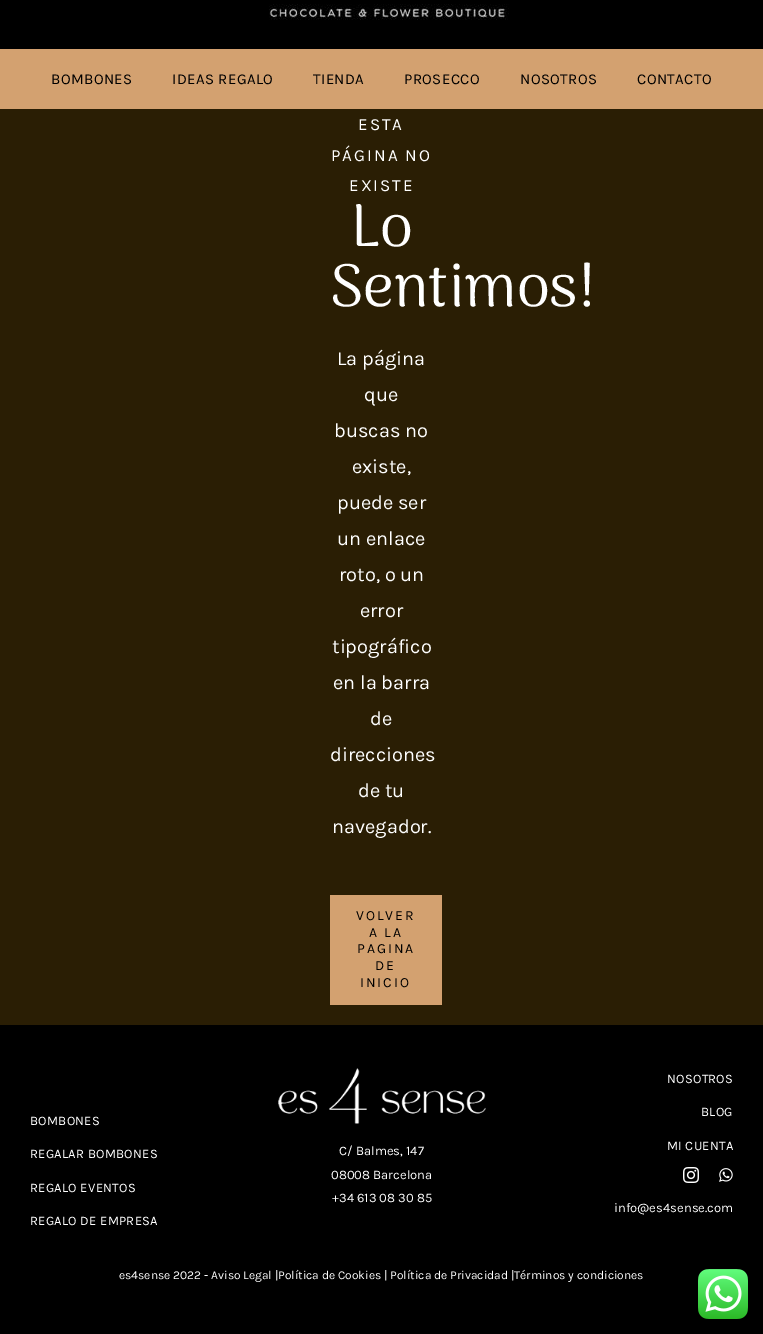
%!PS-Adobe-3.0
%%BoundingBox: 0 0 763 1334
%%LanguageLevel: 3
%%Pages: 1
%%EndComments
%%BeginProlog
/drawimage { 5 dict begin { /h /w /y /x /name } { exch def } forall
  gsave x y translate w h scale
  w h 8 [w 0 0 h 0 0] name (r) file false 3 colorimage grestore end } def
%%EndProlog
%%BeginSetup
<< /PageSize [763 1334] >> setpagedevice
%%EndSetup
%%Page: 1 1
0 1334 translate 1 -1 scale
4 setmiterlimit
0 setgray
0 0 763 1334 rectfill
(images/1.raw) 269 4 240 16 drawimage
0.827 0.631 0.439 setrgbcolor
0 49 763 60 rectfill
0.165 0.118 0.016 setrgbcolor
0 109 763 916 rectfill
0.827 0.631 0.439 setrgbcolor
330 895 112 110 rectfill
(images/2.raw) 278 1068 208 56 drawimage
(images/3.raw) 683 1167 16 16 drawimage
(images/4.raw) 719 1168 14 14 drawimage
(images/5.raw) 698 1269 50 50 drawimage
/Karla-Regular [15 0 0 -15 0 0] selectfont
0 setgray
51 84 moveto 0.4 0 (BOMBONES) ashow
172 84 moveto 0.4 0 (IDEAS REGALO) ashow
313 84 moveto 0.4 0 (TIENDA) ashow
404 84 moveto 0.4 0 (PROSECCO) ashow
520 84 moveto 0.4 0 (NOSOTROS) ashow
637 84 moveto 0.4 0 (CONTACTO) ashow
/Karla-Regular [17 0 0 -17 0 0] selectfont
1 setgray
358 130 moveto 2 0 (ESTA) ashow
331 161 moveto 2 0 (PÁGINA NO) ashow
349 191 moveto 2 0 (EXISTE) ashow
/Arima-Regular [60 0 0 -60 0 0] selectfont
351 246 moveto (Lo) show
330 306 moveto (Sentimos!) show
/Karla-Regular [20 0 0 -20 0 0] selectfont
337 365 moveto (La página) show
364 401 moveto (que) show
334 437 moveto (buscas no) show
352 473 moveto (existe,) show
337 509 moveto (puede ser) show
337 545 moveto (un enlace) show
339 581 moveto (roto, o un) show
360 617 moveto (error) show
332 653 moveto (tipográfico) show
333 689 moveto (en la barra) show
370 725 moveto (de) show
330 761 moveto (direcciones) show
358 797 moveto (de tu) show
332 833 moveto (navegador.) show
/Karla-Regular [14 0 0 -14 0 0] selectfont
0 setgray
356 920 moveto 2 0 (VOLVER) ashow
369 937 moveto 2 0 (A LA) ashow
357 953 moveto 2 0 (PAGINA) ashow
375 970 moveto 2 0 (DE) ashow
360 987 moveto 2 0 (INICIO) ashow
/Karla-Regular [13 0 0 -13 0 0] selectfont
1 setgray
30 1125 moveto 0.25 0 (BOMBONES) ashow
30 1158 moveto 0.25 0 (REGALAR BOMBONES) ashow
30 1192 moveto 0.25 0 (REGALO EVENTOS) ashow
30 1225 moveto 0.25 0 (REGALO DE EMPRESA) ashow
339 1155 moveto (C/ Balmes, 147) show
331 1179 moveto (08008 Barcelona) show
332 1202 moveto (+34 613 08 30 85) show
667 1083 moveto 0.25 0 (NOSOTROS) ashow
701 1116 moveto 0.25 0 (BLOG) ashow
667 1150 moveto 0.25 0 (MI CUENTA) ashow
614 1212 moveto (info@es4sense.com) show
/Karla-Regular [12 0 0 -12 0 0] selectfont
119 1279 moveto (es4sense 2022 - Aviso Legal |Política de Cookies | Política de Privacidad |Términos y condiciones) show
showpage
%%EOF
